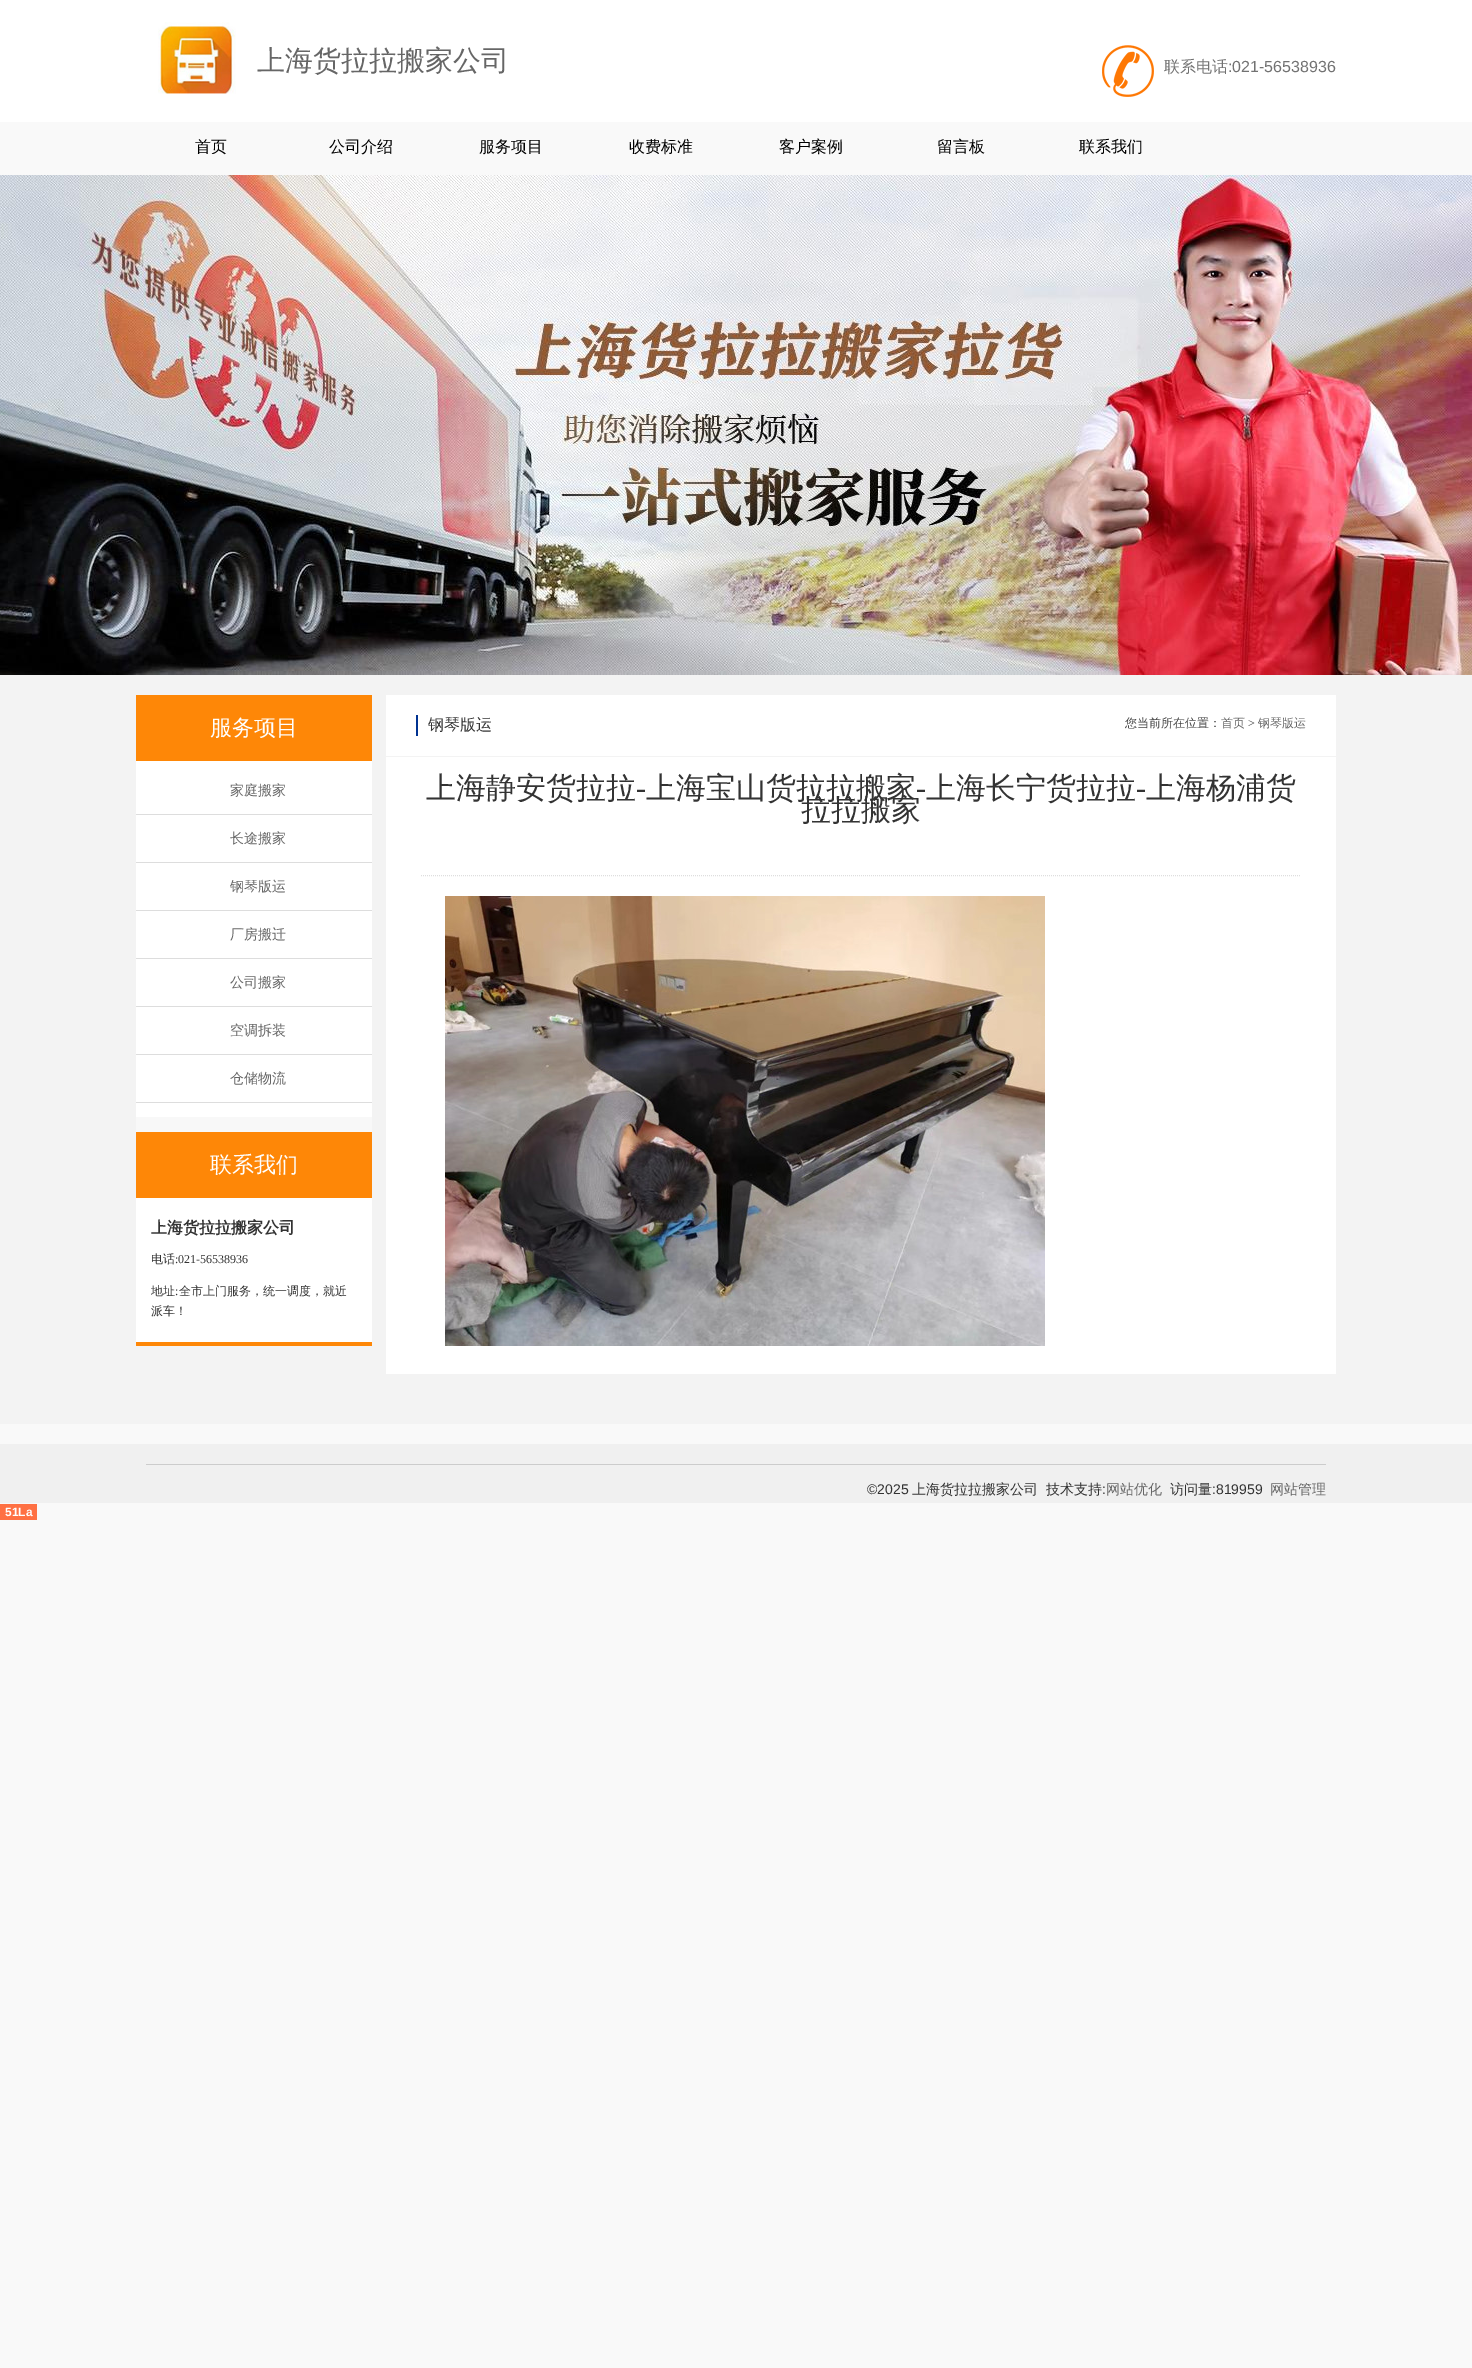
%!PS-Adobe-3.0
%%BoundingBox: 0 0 1472 2368
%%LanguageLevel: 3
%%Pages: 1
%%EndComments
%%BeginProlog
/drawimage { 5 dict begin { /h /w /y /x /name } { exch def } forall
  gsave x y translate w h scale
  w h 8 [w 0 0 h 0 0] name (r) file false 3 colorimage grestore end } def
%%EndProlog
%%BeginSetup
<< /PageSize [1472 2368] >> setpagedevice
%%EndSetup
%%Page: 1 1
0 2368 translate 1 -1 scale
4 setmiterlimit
0.976 setgray
0 0 1472 2368 rectfill
1 setgray
0 0 1472 122 rectfill
(images/1.raw) 158 22 78 72 drawimage
(images/2.raw) 1102 45 52 52 drawimage
(images/3.raw) 0 175 1472 500 drawimage
0.953 setgray
0 675 1472 749 rectfill
0.973 setgray
136 1117 236 15 rectfill
0.996 0.529 0.027 setrgbcolor
136 695 236 66 rectfill
1 setgray
136 761 236 356 rectfill
0.867 setgray
136 814 236 1 rectfill
136 862 236 1 rectfill
136 910 236 1 rectfill
136 958 236 1 rectfill
136 1006 236 1 rectfill
136 1054 236 1 rectfill
136 1102 236 1 rectfill
0.996 0.529 0.027 setrgbcolor
136 1132 236 66 rectfill
1 setgray
136 1198 236 144 rectfill
0.996 0.529 0.027 setrgbcolor
136 1342 236 4 rectfill
1 setgray
386 695 950 679 rectfill
0.953 setgray
386 756 950 1 rectfill
0 0.196 0.569 setrgbcolor
416 715 2 21 rectfill
0.871 setgray
[1 1] 0 setdash
newpath 421 875.5 moveto 1301 875.5 lineto stroke
(images/4.raw) 445 896 600 450 drawimage
0.941 setgray
0 1444 1472 59 rectfill
0.8 setgray
146 1464 1180 1 rectfill
1 0.439 0.263 setrgbcolor
0 1504 37 16 rectfill
/WenQuanYiZenHei-Medium [28 0 0 -28 0 0] selectfont
0.4 setgray
257 70 moveto (上海货拉拉搬家公司) show
/WenQuanYiZenHei-Medium [16 0 0 -16 0 0] selectfont
0.447 setgray
1164 72 moveto (联系电话) show
/LiberationSans-Regular [16 0 0 -16 0 0] selectfont
1228 72 moveto (:021-56538936) show
/WenQuanYiZenHei-Medium [16 0 0 -16 0 0] selectfont
0 setgray
195 152 moveto (首页) show
329 152 moveto (公司介绍) show
479 152 moveto (服务项目) show
629 152 moveto (收费标准) show
779 152 moveto (客户案例) show
937 152 moveto (留言板) show
1079 152 moveto (联系我们) show
/WenQuanYiZenHei-Medium [22 0 0 -22 0 0] selectfont
1 setgray
210 735 moveto (服务项目) show
/WenQuanYiZenHei-Medium [14 0 0 -14 0 0] selectfont
0.4 setgray
230 795 moveto (家庭搬家) show
230 843 moveto (长途搬家) show
230 891 moveto (钢琴版运) show
230 939 moveto (厂房搬迁) show
230 987 moveto (公司搬家) show
230 1035 moveto (空调拆装) show
230 1083 moveto (仓储物流) show
/WenQuanYiZenHei-Medium [22 0 0 -22 0 0] selectfont
1 setgray
210 1172 moveto (联系我们) show
/WenQuanYiZenHei-Bold [16 0 0 -16 0 0] selectfont
0.2 setgray
151 1233 moveto (上海货拉拉搬家公司) show
/WenQuanYiZenHei-Medium [12 0 0 -12 0 0] selectfont
151 1263 moveto (电话) show
/LiberationSerif-Regular [12 0 0 -12 0 0] selectfont
175 1263 moveto (:021-56538936) show
/WenQuanYiZenHei-Medium [12 0 0 -12 0 0] selectfont
151 1295 moveto (地址 全市上门服务，统一调度，就近) show
/LiberationSerif-Regular [12 0 0 -12 0 0] selectfont
175 1295 moveto (:) show
/WenQuanYiZenHei-Medium [12 0 0 -12 0 0] selectfont
151 1315 moveto (派车！) show
/WenQuanYiZenHei-Medium [16 0 0 -16 0 0] selectfont
428 730 moveto (钢琴版运) show
/WenQuanYiZenHei-Medium [12 0 0 -12 0 0] selectfont
0.271 setgray
1125 727 moveto (您当前所在位置：) show
0.4 setgray
1221 727 moveto (首页) show
/LiberationSerif-Regular [12 0 0 -12 0 0] selectfont
0.271 setgray
1248 727 moveto (>) show
/WenQuanYiZenHei-Medium [12 0 0 -12 0 0] selectfont
0.4 setgray
1258 727 moveto (钢琴版运) show
/WenQuanYiZenHei-Medium [30 0 0 -30 0 0] selectfont
0.2 setgray
426 798 moveto (上海静安货拉拉) show
/LiberationSerif-Regular [30 0 0 -30 0 0] selectfont
636 798 moveto (-) show
/WenQuanYiZenHei-Medium [30 0 0 -30 0 0] selectfont
646 798 moveto (上海宝山货拉拉搬家) show
/LiberationSerif-Regular [30 0 0 -30 0 0] selectfont
916 798 moveto (-) show
/WenQuanYiZenHei-Medium [30 0 0 -30 0 0] selectfont
926 798 moveto (上海长宁货拉拉) show
/LiberationSerif-Regular [30 0 0 -30 0 0] selectfont
1136 798 moveto (-) show
/WenQuanYiZenHei-Medium [30 0 0 -30 0 0] selectfont
1146 798 moveto (上海杨浦货) show
801 820 moveto (拉拉搬家) show
/LiberationSans-Regular [14 0 0 -14 0 0] selectfont
867 1494 moveto (©2025) show
/WenQuanYiZenHei-Medium [14 0 0 -14 0 0] selectfont
912 1494 moveto (上海货拉拉搬家公司) show
1046 1494 moveto (技术支持) show
/LiberationSans-Regular [14 0 0 -14 0 0] selectfont
1102 1494 moveto (:) show
/WenQuanYiZenHei-Medium [14 0 0 -14 0 0] selectfont
0.4 setgray
1106 1494 moveto (网站优化) show
0.2 setgray
1170 1494 moveto (访问量) show
/LiberationSans-Regular [14 0 0 -14 0 0] selectfont
1212 1494 moveto (:819959) show
/WenQuanYiZenHei-Medium [14 0 0 -14 0 0] selectfont
0.4 setgray
1270 1494 moveto (网站管理) show
/LiberationSans-Bold [12 0 0 -12 0 0] selectfont
1 setgray
5 1516 moveto (51La) show
showpage
%%EOF
